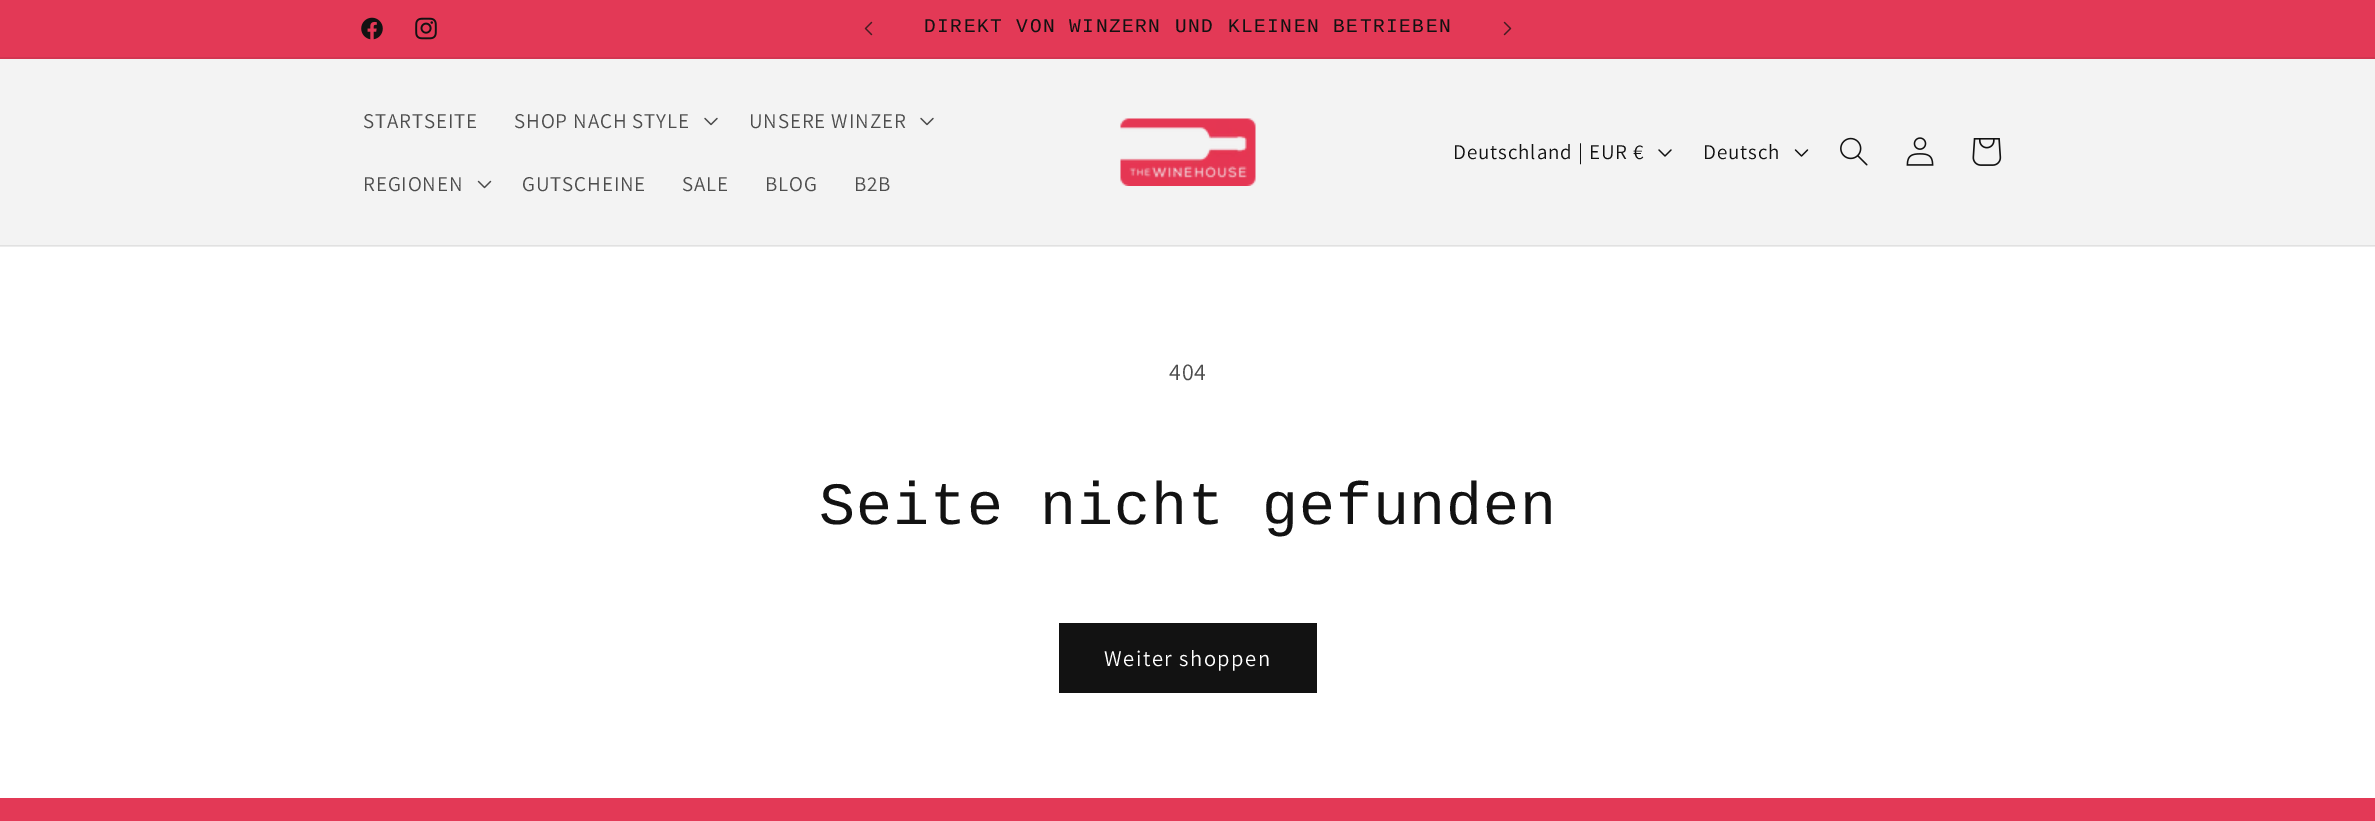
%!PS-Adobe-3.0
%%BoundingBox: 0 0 2375 821
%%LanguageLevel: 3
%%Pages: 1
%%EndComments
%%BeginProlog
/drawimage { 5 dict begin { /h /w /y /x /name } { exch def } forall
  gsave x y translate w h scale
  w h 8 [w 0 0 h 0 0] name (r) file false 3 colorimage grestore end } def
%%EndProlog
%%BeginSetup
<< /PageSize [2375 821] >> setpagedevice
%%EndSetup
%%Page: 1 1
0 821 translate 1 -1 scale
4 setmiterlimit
1 setgray
0 0 2375 821 rectfill
0.925 setgray
0 246 2375 1 rectfill
0.89 0.224 0.337 setrgbcolor
0 0 2375 57 rectfill
0.824 0.212 0.318 setrgbcolor
0 57 2375 2 rectfill
(images/1.raw) 361 17 22 23 drawimage
(images/2.raw) 415 17 22 23 drawimage
(images/3.raw) 864 21 9 15 drawimage
(images/4.raw) 1503 21 9 15 drawimage
0.953 setgray
0 59 2375 186 rectfill
0.882 setgray
0 245 2375 1 rectfill
(images/5.raw) 704 117 14 9 drawimage
(images/5.raw) 920 117 14 9 drawimage
(images/6.raw) 477 180 15 9 drawimage
(images/7.raw) 1120 118 136 68 drawimage
(images/8.raw) 1658 149 14 8 drawimage
(images/9.raw) 1794 149 15 8 drawimage
(images/10.raw) 1840 137 28 29 drawimage
(images/11.raw) 1906 137 28 29 drawimage
(images/12.raw) 1972 138 30 28 drawimage
0.071 setgray
1059 623 258 70 rectfill
0.89 0.224 0.337 setrgbcolor
0 798 2375 23 rectfill
/LiberationMono-Regular [19.5 0 0 -19.5 0 0] selectfont
0.071 setgray
924 32 moveto 1.5 0 (DIREKT VON WINZERN UND KLEINEN BETRIEBEN) ashow
/Assistant-Regular [21 0 0 -21 0 0] selectfont
0.302 setgray
363 128 moveto 0.9 0 (STARTSEITE) ashow
514 128 moveto 0.9 0 (SHOP NACH STYLE) ashow
749 128 moveto 0.9 0 (UNSERE WINZER) ashow
363 191 moveto 0.9 0 (REGIONEN) ashow
522 191 moveto 0.9 0 (GUTSCHEINE) ashow
682 191 moveto 0.9 0 (SALE) ashow
765 191 moveto 0.9 0 (BLOG) ashow
854 191 moveto 0.9 0 (B2B) ashow
0.071 setgray
1453 159 moveto 0.9 0 (Deutschland | EUR €) ashow
1703 159 moveto 0.9 0 (Deutsch) ashow
/Assistant-Regular [24 0 0 -24 0 0] selectfont
0.302 setgray
1169 380 moveto 0.9 0 (404) ashow
/LiberationMono-Regular [60 0 0 -60 0 0] selectfont
0.071 setgray
819 524 moveto 0.9 0 (Seite nicht gefunden) ashow
/Assistant-Regular [22.5 0 0 -22.5 0 0] selectfont
1 setgray
1104 666 moveto 1.5 0 (Weiter shoppen) ashow
showpage
%%EOF
